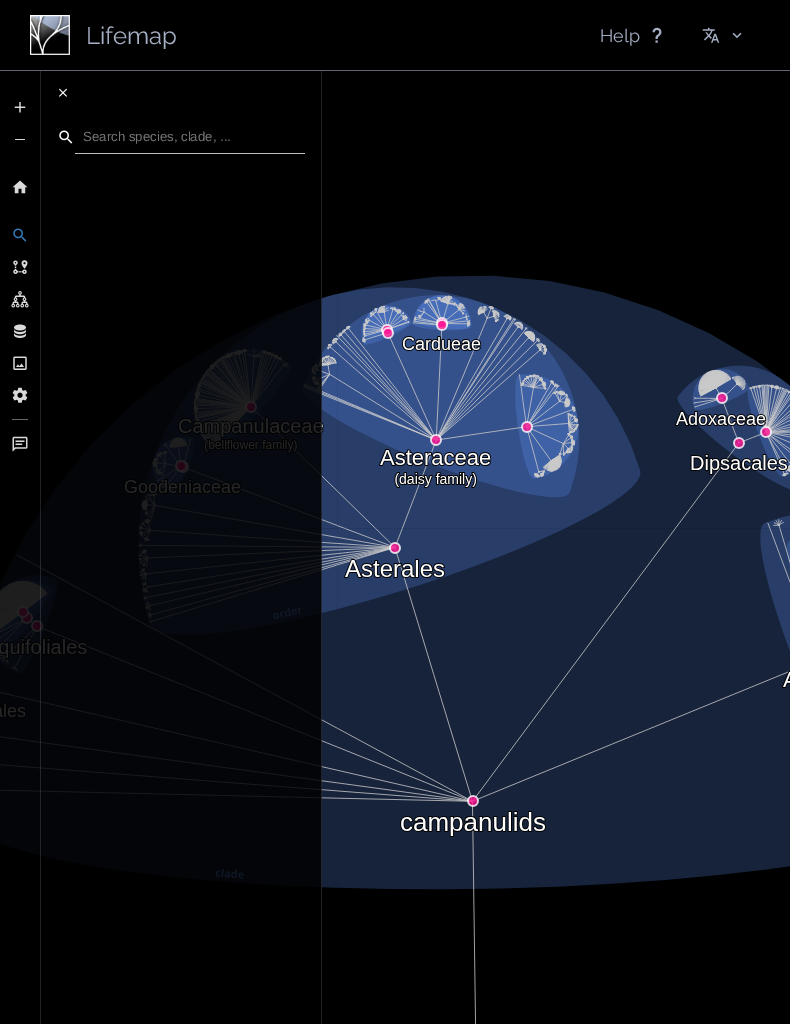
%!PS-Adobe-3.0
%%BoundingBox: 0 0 790 1024
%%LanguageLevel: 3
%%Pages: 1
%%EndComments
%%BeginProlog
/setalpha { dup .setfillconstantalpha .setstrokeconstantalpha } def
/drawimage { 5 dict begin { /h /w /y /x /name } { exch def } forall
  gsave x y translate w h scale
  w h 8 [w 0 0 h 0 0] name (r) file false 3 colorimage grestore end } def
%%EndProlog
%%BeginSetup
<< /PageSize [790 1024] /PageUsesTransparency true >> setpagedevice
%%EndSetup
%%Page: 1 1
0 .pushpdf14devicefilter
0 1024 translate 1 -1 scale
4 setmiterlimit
0 setgray
0 0 790 1024 rectfill
0.388 0.404 0.443 setrgbcolor
0 70 790 1 rectfill
(images/1.raw) 30 15 40 40 drawimage
(images/2.raw) 652 27 10 16 drawimage
(images/3.raw) 702 27 18 16 drawimage
(images/4.raw) 732 32 10 7 drawimage
(images/16.raw) 0 275 790 749 drawimage
0.85 setalpha
0 setgray
0 510 41 346 rectfill
0.25 setalpha
0.502 0.518 0.569 setrgbcolor
40 71 1 953 rectfill
1 setalpha
(images/5.raw) 14 102 12 11 drawimage
0.855 setgray
15 139 10 1 rectfill
(images/6.raw) 12 180 16 14 drawimage
(images/7.raw) 13 228 14 14 drawimage
(images/8.raw) 13 260 15 14 drawimage
(images/9.raw) 11 291 18 17 drawimage
(images/10.raw) 14 324 12 14 drawimage
(images/11.raw) 13 356 14 14 drawimage
(images/12.raw) 12 387 16 16 drawimage
0.408 setgray
12 419 16 1 rectfill
(images/13.raw) 12 436 16 16 drawimage
0.85 setalpha
0 setgray
41 298 281 590 rectfill
0.25 setalpha
0.502 0.518 0.569 setrgbcolor
321 71 1 953 rectfill
1 setalpha
(images/14.raw) 59 88 8 9 drawimage
(images/15.raw) 59 130 14 14 drawimage
0.749 setgray
75 153 230 1 rectfill
/Raleway-Regular [24 0 0 -24 0 0] selectfont
0.651 0.69 0.773 setrgbcolor
86 44 moveto (Lifemap) show
/Raleway-Regular [18 0 0 -18 0 0] selectfont
600 42 moveto (Help) show
/LiberationSans-Regular [13.25 0 0 -13.25 0 0] selectfont
0.459 setgray
83 141 moveto (Search species, clade, ...) show
.poppdf14devicefilter showpage
%%EOF
